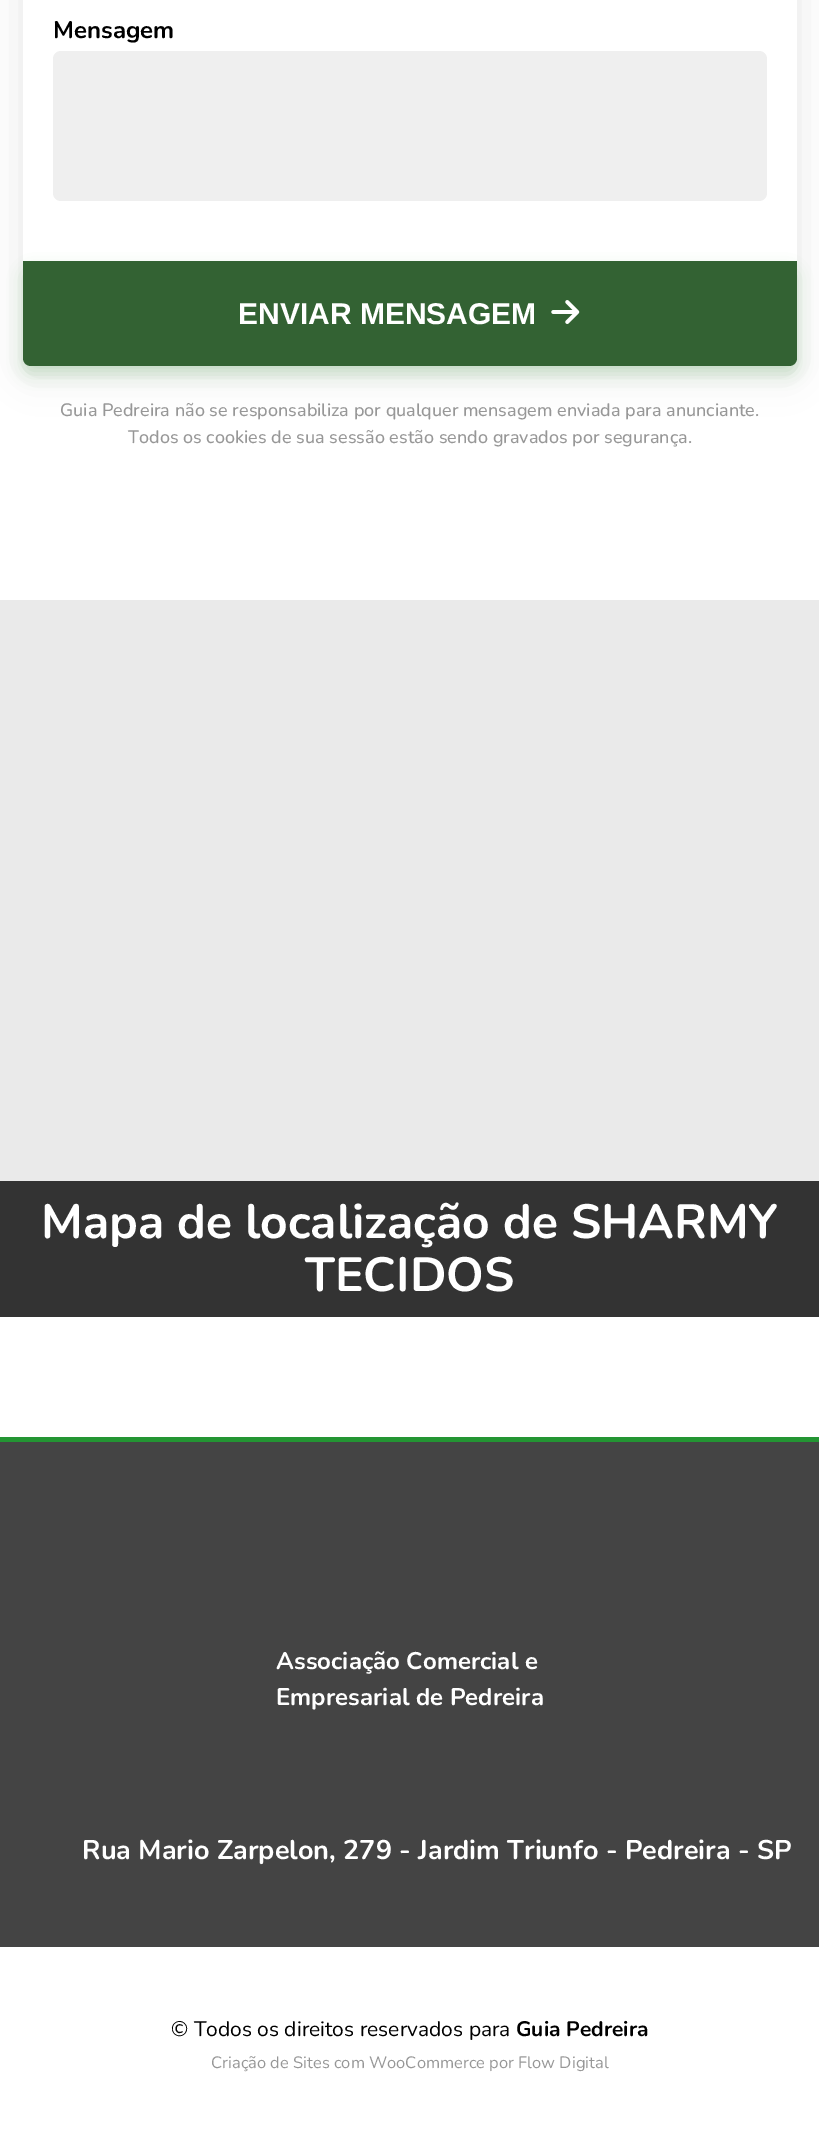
%!PS-Adobe-3.0
%%BoundingBox: 0 0 819 2144
%%LanguageLevel: 3
%%Pages: 1
%%EndComments
%%BeginProlog
/setalpha { dup .setfillconstantalpha .setstrokeconstantalpha } def
/rrect { 5 dict begin { /r /h /w /y /x } { exch def } forall
  x r add y moveto x w add y 2 copy h add r arct x w add y h add x 1 index r arct
  x y h add x y r arct x y 2 copy exch w add exch r arct closepath end } def
/softshadow { 12 dict begin { /a /b /q /h /w /y /x } { exch def } forall gsave /was 0 def
  9 -2 -9 { dup b mul 4 div /e exch def 1 sub .425 mul 2.718 exch exp 1 add a .99 .min exch div /now exch def
    1 1 now sub 1 was sub div sub setalpha /was now def
    w h .min e 2 mul add 0 gt { x e sub y e sub w e 2 mul add h e 2 mul add
      q e add b .6 mul add w h .min 2 div e add .min 0 .max rrect fill } if } for grestore end } def
/drawimage { 5 dict begin { /h /w /y /x /name } { exch def } forall
  gsave x y translate w h scale
  w h 8 [w 0 0 h 0 0] name (r) file false 3 colorimage grestore end } def
%%EndProlog
%%BeginSetup
<< /PageSize [819 2144] /PageUsesTransparency true >> setpagedevice
%%EndSetup
%%Page: 1 1
0 .pushpdf14devicefilter
0 2144 translate 1 -1 scale
4 setmiterlimit
1 setgray
0 0 819 2144 rectfill
0 setgray
23 -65 774 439 8 19 0.1 softshadow
1 setgray
23 -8 774 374 8 rrect fill
0.937 setgray
53 51 714 150 8 rrect fill
0.176 0.588 0.184 setrgbcolor
23 269 774 105 8 7.5 0.2 softshadow
0.2 0.384 0.2 setrgbcolor
newpath 23 261 moveto 797 261 lineto 797 358 lineto 797 362.5 793.5 366 789 366 curveto 31 366 lineto 26.5 366 23 362.5 23 358 curveto closepath fill
(images/1.raw) 551 300 29 24 drawimage
0.918 setgray
0 600 819 581 rectfill
0.2 setgray
0 1181 819 136 rectfill
0.267 setgray
0 1442 819 505 rectfill
0.137 0.584 0.2 setrgbcolor
0 1437 819 5 rectfill
/Nunito-Bold [24 0 0 -24 0 0] selectfont
0 setgray
53 38 moveto (Mensagem) show
/LiberationSans-Bold [30 0 0 -30 0 0] selectfont
1 setgray
238 324 moveto (ENVIAR MENSAGEM) show
/Nunito-Medium [18 0 0 -18 0 0] selectfont
0.592 setgray
60 416 moveto (Guia Pedreira não se responsabiliza por qualquer mensagem enviada para anunciante.) show
128 443 moveto (Todos os cookies de sua sessão estão sendo gravados por segurança.) show
/Nunito-Bold [48 0 0 -48 0 0] selectfont
1 setgray
41 1238 moveto (Mapa de localização de SHARMY) show
305 1291 moveto (TECIDOS) show
/Nunito-Bold [24 0 0 -24 0 0] selectfont
276 1669 moveto (Associação Comercial e) show
276 1705 moveto (Empresarial de Pedreira) show
/Nunito-Bold [27 0 0 -27 0 0] selectfont
82 1859 moveto (Rua Mario Zarpelon, 279 - Jardim Triunfo - Pedreira - SP) show
/Nunito-Regular [21 0 0 -21 0 0] selectfont
0 setgray
171 2036 moveto (© Todos os direitos reservados para) show
/Nunito-Bold [21 0 0 -21 0 0] selectfont
516 2036 moveto (Guia Pedreira) show
/Nunito-Regular [16.5 0 0 -16.5 0 0] selectfont
0.592 setgray
211 2068 moveto (Criação de Sites com WooCommerce por Flow Digital) show
.poppdf14devicefilter showpage
%%EOF
